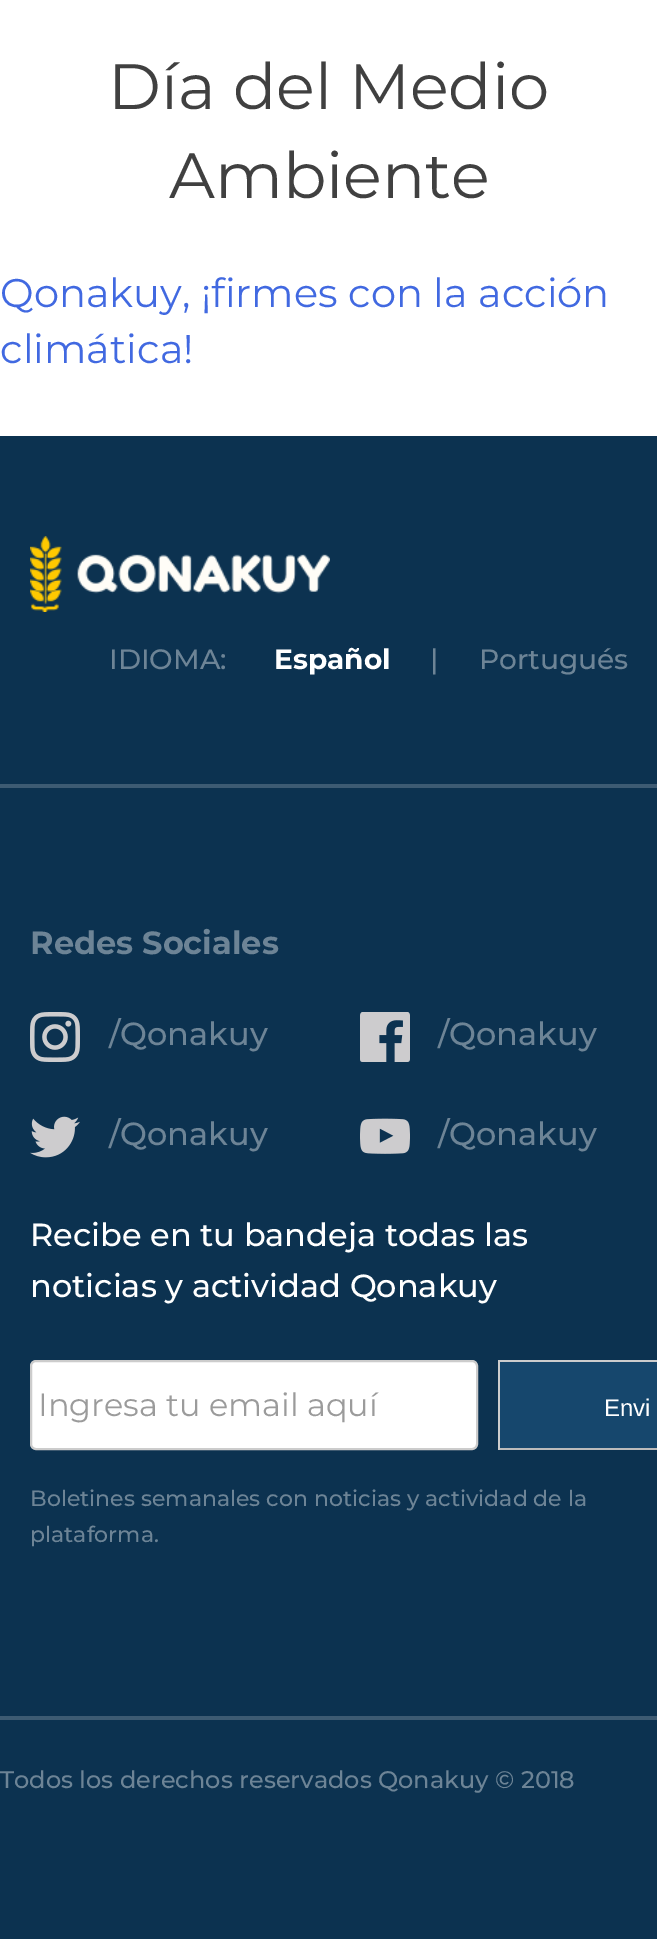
%!PS-Adobe-3.0
%%BoundingBox: 0 0 657 1939
%%LanguageLevel: 3
%%Pages: 1
%%EndComments
%%BeginProlog
/rrect { 5 dict begin { /r /h /w /y /x } { exch def } forall
  x r add y moveto x w add y 2 copy h add r arct x w add y h add x 1 index r arct
  x y h add x y r arct x y 2 copy exch w add exch r arct closepath end } def
/drawimage { 5 dict begin { /h /w /y /x /name } { exch def } forall
  gsave x y translate w h scale
  w h 8 [w 0 0 h 0 0] name (r) file false 3 colorimage grestore end } def
%%EndProlog
%%BeginSetup
<< /PageSize [657 1939] >> setpagedevice
%%EndSetup
%%Page: 1 1
0 1939 translate 1 -1 scale
4 setmiterlimit
1 setgray
0 0 657 1939 rectfill
0.047 0.196 0.314 setrgbcolor
0 436 657 1503 rectfill
0.239 0.357 0.451 setrgbcolor
0 784 657 4 rectfill
(images/1.raw) 30 536 300 76 drawimage
(images/2.raw) 30 1012 50 50 drawimage
(images/3.raw) 360 1012 50 50 drawimage
(images/4.raw) 30 1116 50 42 drawimage
(images/5.raw) 360 1118 50 36 drawimage
1 setgray
31 1361 446 88 5 rrect gsave fill grestore
0.8 setgray
2 setlinewidth
stroke
0.086 0.278 0.427 setrgbcolor
500 1362 157 86 rectfill
0.8 setgray
498 1360 159 2 rectfill
0.733 setgray
498 1448 159 2 rectfill
0.8 setgray
498 1360 2 90 rectfill
0.239 0.357 0.451 setrgbcolor
0 1716 657 4 rectfill
/Montserrat-Regular [64 0 0 -64 0 0] selectfont
0.251 setgray
108 109 moveto (Día del Medio) show
169 198 moveto (Ambiente) show
/Montserrat-Regular [40 0 0 -40 0 0] selectfont
0.255 0.412 0.882 setrgbcolor
0 307 moveto (Qonakuy, ¡firmes con la acción) show
0 363 moveto (climática!) show
/Montserrat-Medium [28 0 0 -28 0 0] selectfont
0.427 0.518 0.588 setrgbcolor
109 669 moveto (IDIOMA:) show
/Montserrat-Bold [28 0 0 -28 0 0] selectfont
1 setgray
274 669 moveto (Español) show
/Montserrat-Medium [28 0 0 -28 0 0] selectfont
0.427 0.518 0.588 setrgbcolor
430 669 moveto (|) show
479 669 moveto (Portugués) show
/Montserrat-Bold [32 0 0 -32 0 0] selectfont
30 954 moveto (Redes Sociales) show
/Montserrat-Medium [32 0 0 -32 0 0] selectfont
109 1045 moveto (/Qonakuy) show
438 1045 moveto (/Qonakuy) show
109 1145 moveto (/Qonakuy) show
438 1145 moveto (/Qonakuy) show
1 setgray
30 1246 moveto (Recibe en tu bandeja todas las) show
30 1297 moveto (noticias y actividad Qonakuy) show
/Montserrat-Regular [32 0 0 -32 0 0] selectfont
0.608 setgray
38 1416 moveto (Ingresa tu email aquí) show
/LiberationSans-Regular [24 0 0 -24 0 0] selectfont
1 setgray
604 1416 moveto (Envi) show
/Montserrat-Medium [22 0 0 -22 0 0] selectfont
0.427 0.518 0.588 setrgbcolor
30 1506 moveto (Boletines semanales con noticias y actividad de la) show
30 1542 moveto (plataforma.) show
/Montserrat-Medium [24 0 0 -24 0 0] selectfont
0 1788 moveto (Todos los derechos reservados Qonakuy © 2018) show
showpage
%%EOF
